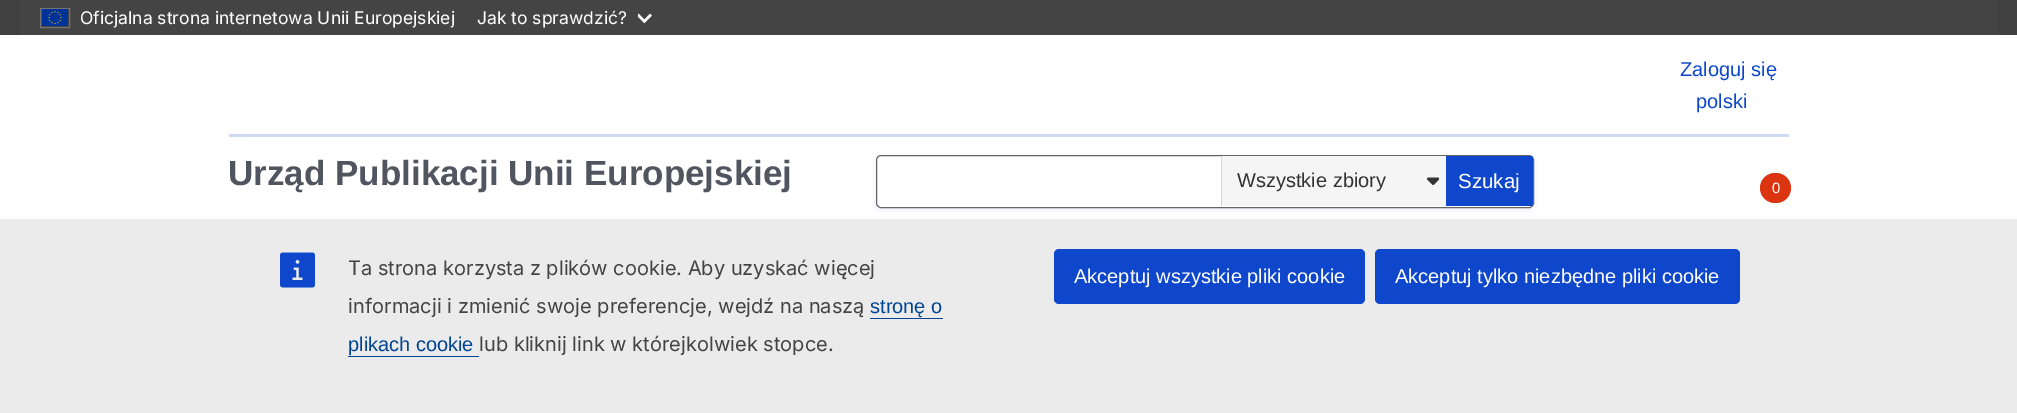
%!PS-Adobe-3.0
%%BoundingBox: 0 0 2017 413
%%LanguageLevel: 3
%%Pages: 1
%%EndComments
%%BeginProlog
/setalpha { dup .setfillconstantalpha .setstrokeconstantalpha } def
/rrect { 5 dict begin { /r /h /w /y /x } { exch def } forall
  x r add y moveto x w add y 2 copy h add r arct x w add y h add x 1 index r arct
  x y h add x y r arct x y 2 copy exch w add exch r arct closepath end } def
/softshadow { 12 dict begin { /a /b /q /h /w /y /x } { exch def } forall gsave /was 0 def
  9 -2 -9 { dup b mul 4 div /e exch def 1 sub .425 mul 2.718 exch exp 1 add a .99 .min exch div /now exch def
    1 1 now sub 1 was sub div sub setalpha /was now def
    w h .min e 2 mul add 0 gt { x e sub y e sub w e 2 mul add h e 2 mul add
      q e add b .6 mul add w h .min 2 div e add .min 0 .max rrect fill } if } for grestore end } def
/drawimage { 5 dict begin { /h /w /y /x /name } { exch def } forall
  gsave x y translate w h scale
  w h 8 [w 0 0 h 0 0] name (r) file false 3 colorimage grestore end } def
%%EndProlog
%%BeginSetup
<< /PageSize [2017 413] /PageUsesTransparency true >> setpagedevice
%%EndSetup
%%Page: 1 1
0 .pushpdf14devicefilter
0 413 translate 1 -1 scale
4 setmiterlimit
1 setgray
0 0 2017 413 rectfill
0.251 setgray
0 0 2017 35 rectfill
0.267 setgray
20 0 1978 35 rectfill
0.451 setgray
40.5 8.5 29 19 rectstroke
(images/1.raw) 42 9 26 17 drawimage
(images/2.raw) 638 13 14 11 drawimage
0.922 setgray
0 219 2017 194 rectfill
(images/3.raw) 280 252 35 36 drawimage
0 0.267 0.58 setrgbcolor
870 318 73 1 rectfill
348 356 131 1 rectfill
0.055 0.278 0.796 setrgbcolor
1054 249 311 55 5 rrect fill
1375 249 365 55 5 rrect fill
0.812 0.855 0.961 setrgbcolor
229 134 1560 3 rectfill
gsave
newpath 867 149 moveto 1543 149 lineto 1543 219 lineto 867 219 lineto closepath 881 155 moveto 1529 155 lineto 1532 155 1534 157 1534 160 curveto 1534 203 lineto 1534 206 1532 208 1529 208 curveto 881 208 lineto 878 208 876 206 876 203 curveto 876 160 lineto 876 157 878 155 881 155 curveto closepath eoclip newpath
0.035 0.192 0.557 setrgbcolor
876 158 658 52 5 2.5 0.08 softshadow
grestore
0.4 setgray
876.5 155.5 657 52 4.5 rrect stroke
0.961 setgray
1222 156 224 50 rectfill
(images/4.raw) 1427 177 12 8 drawimage
0.847 setgray
1221 156 1 50 rectfill
0.055 0.278 0.796 setrgbcolor
newpath 1446 156 moveto 1530.5 156 lineto 1532 156 1533 157 1533 158.5 curveto 1533 203.5 lineto 1533 205 1532 206 1530.5 206 curveto 1446 206 lineto closepath fill
0.855 0.208 0.063 setrgbcolor
1760 173 31 30 15 rrect fill
/Inter-Regular [17.5 0 0 -17.5 0 0] selectfont
1 setgray
80 24 moveto (Oficjalna strona internetowa Unii Europejskiej) show
477 24 moveto (Jak to sprawdzić?) show
/Inter-Regular [20 0 0 -20 0 0] selectfont
0.267 setgray
348 275 moveto (Ta strona korzysta z plików cookie. Aby uzyskać więcej) show
348 313 moveto (informacji i zmienić swoje preferencje, wejdź na naszą) show
/LiberationSans-Regular [20 0 0 -20 0 0] selectfont
0 0.267 0.58 setrgbcolor
870 313 moveto (stronę o) show
348 351 moveto (plikach cookie) show
/Inter-Regular [20 0 0 -20 0 0] selectfont
0.267 setgray
479 351 moveto (lub kliknij link w którejkolwiek stopce.) show
/LiberationSans-Regular [20 0 0 -20 0 0] selectfont
1 setgray
1074 283 moveto (Akceptuj wszystkie pliki cookie) show
1395 283 moveto (Akceptuj tylko niezbędne pliki cookie) show
0.055 0.278 0.796 setrgbcolor
1680 76 moveto (Zaloguj się) show
1696 108 moveto (polski) show
/LiberationSans-Bold [35 0 0 -35 0 0] selectfont
0.318 0.333 0.376 setrgbcolor
228 185 moveto (Urząd Publikacji Unii Europejskiej) show
/LiberationSans-Regular [20 0 0 -20 0 0] selectfont
0.2 setgray
1237 187 moveto (Wszystkie zbiory) show
/LiberationSans-Regular [20.5 0 0 -20.5 0 0] selectfont
1 setgray
1458 188 moveto (Szukaj) show
/LiberationSans-Regular [15 0 0 -15 0 0] selectfont
1772 193 moveto (0) show
.poppdf14devicefilter showpage
%%EOF
